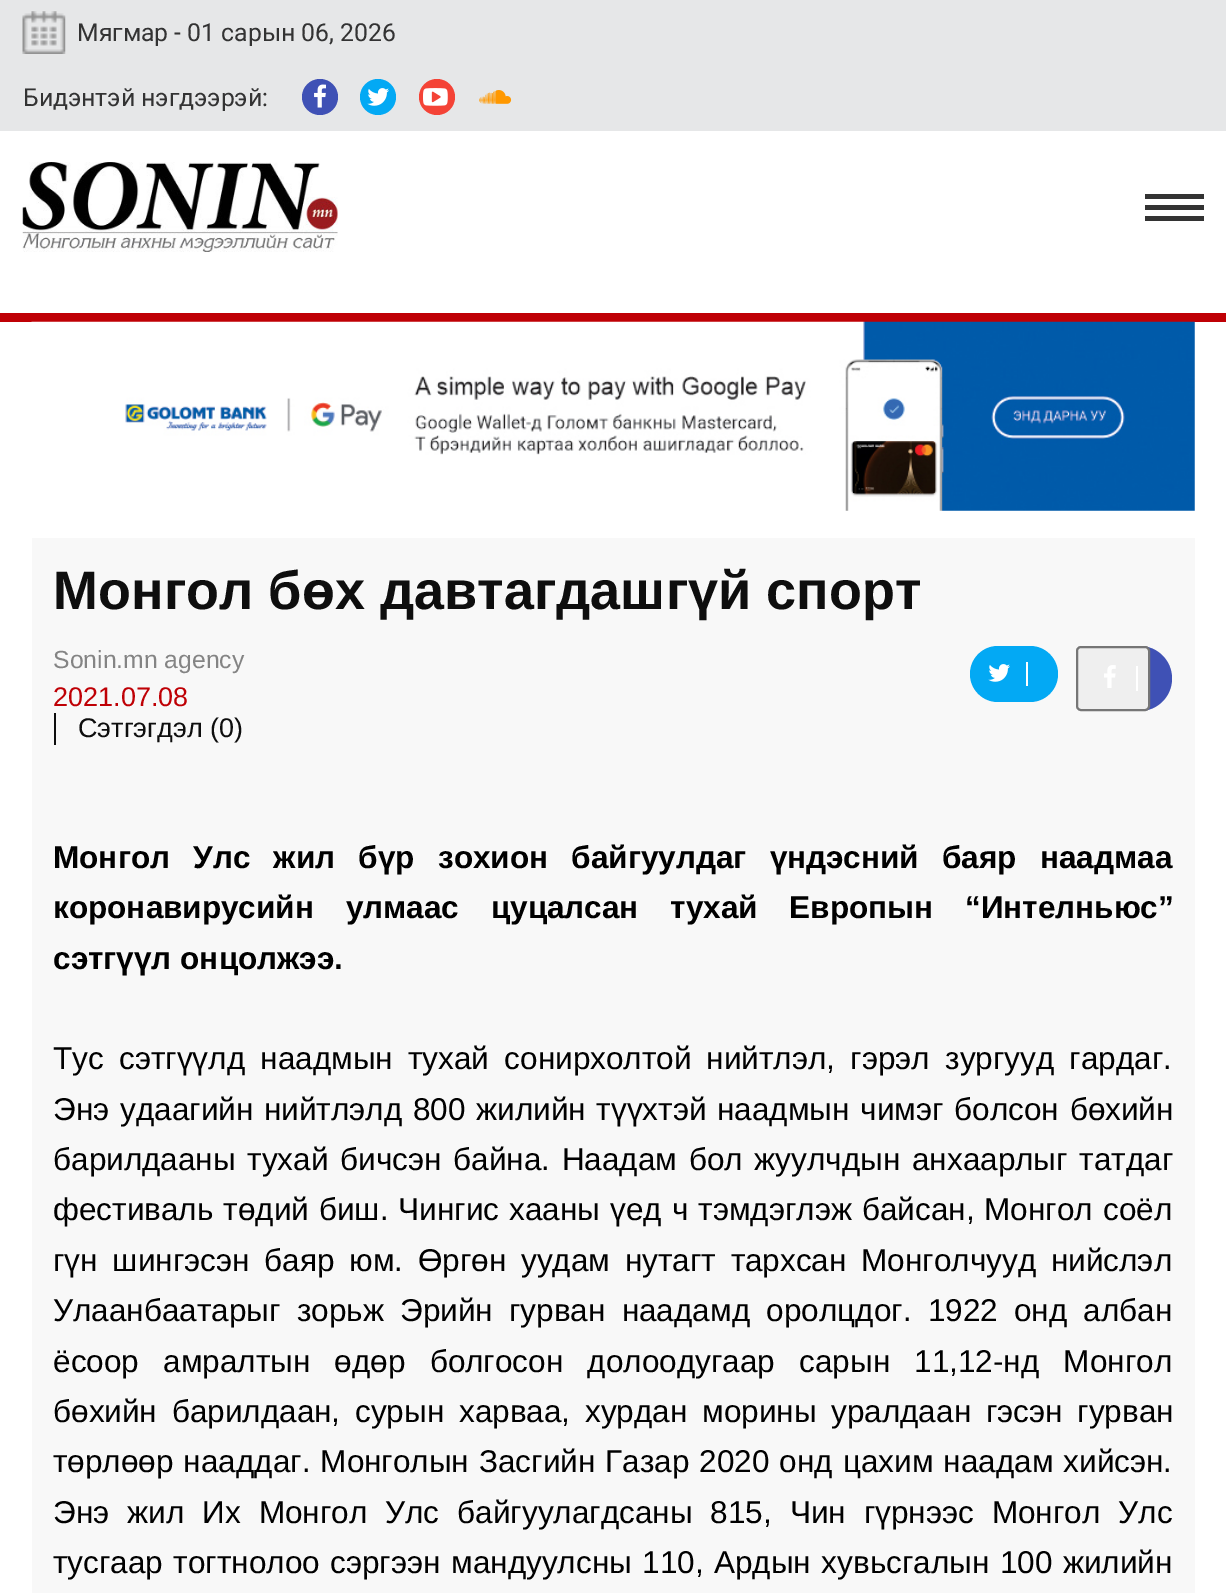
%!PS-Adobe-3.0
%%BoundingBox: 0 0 1226 1593
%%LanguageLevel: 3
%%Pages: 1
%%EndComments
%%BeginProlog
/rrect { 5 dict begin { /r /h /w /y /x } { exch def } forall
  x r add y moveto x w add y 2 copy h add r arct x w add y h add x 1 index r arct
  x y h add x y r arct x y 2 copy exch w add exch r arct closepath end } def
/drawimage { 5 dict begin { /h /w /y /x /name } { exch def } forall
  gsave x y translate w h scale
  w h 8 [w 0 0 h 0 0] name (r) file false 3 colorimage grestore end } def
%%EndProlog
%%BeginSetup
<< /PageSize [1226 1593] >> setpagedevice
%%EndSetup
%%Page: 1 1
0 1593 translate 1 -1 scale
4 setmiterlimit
1 setgray
0 0 1226 1593 rectfill
0.749 0 0.02 setrgbcolor
0 313 1226 9 rectfill
0.902 0.906 0.91 setrgbcolor
0 0 1226 131 rectfill
(images/1.raw) 22 11 44 43 drawimage
0.247 0.318 0.71 setrgbcolor
newpath 320 97 18 0 360 arc closepath fill
(images/2.raw) 314 84 12 24 drawimage
0.012 0.663 0.957 setrgbcolor
newpath 378 97 18 0 360 arc closepath fill
(images/3.raw) 367 88 22 18 drawimage
0.957 0.263 0.212 setrgbcolor
newpath 437 97 18 0 360 arc closepath fill
(images/4.raw) 423 88 25 18 drawimage
(images/5.raw) 479 90 33 14 drawimage
(images/6.raw) 22 162 316 90 drawimage
0.2 setgray
1145 216 59 5 rectfill
1145 194 59 5 rectfill
1145 205 59 5 rectfill
(images/7.raw) 31 321 1164 190 drawimage
0.973 setgray
32 538 1163 1055 rectfill
0.055 setgray
54 713 2 32 rectfill
0.012 0.663 0.957 setrgbcolor
970 646 88 56 28 rrect fill
1 setgray
1026 662 2 24 rectfill
(images/3.raw) 988 664 22 18 drawimage
0.247 0.318 0.71 setrgbcolor
1076 646 96 65 32.5 rrect fill
0.937 setgray
1077 647 72 63 4 rrect gsave fill grestore
0.463 setgray
2 setlinewidth
stroke
1 setgray
1136 666 2 25 rectfill
(images/8.raw) 1104 665 12 23 drawimage
/Roboto-Regular [24.75 0 0 -24.75 0 0] selectfont
0.2 setgray
77 41 moveto (Мягмар - 01 сарын 06, 2026) show
23 106 moveto (Бидэнтэй нэгдээрэй:) show
/LiberationSans-Bold [54 0 0 -54 0 0] selectfont
0.055 setgray
53 609 moveto (Монгол бөх давтагдашгүй спорт) show
/LiberationSans-Regular [24.75 0 0 -24.75 0 0] selectfont
0.518 setgray
53 668 moveto (Sonin.mn agency) show
/LiberationSans-Regular [27 0 0 -27 0 0] selectfont
0.749 0 0.02 setrgbcolor
53 706 moveto (2021.07.08) show
0.055 setgray
78 737 moveto (Сэтгэгдэл \(0\)) show
/LiberationSans-Bold [31.5 0 0 -31.5 0 0] selectfont
0 setgray
53 868 moveto 14.5 0 32 (Монгол Улс жил бүр зохион байгуулдаг үндэсний баяр наадмаа) widthshow
53 918 moveto 23 0 32 (коронавирусийн улмаас цуцалсан тухай Европын “Интелньюс”) widthshow
53 969 moveto (сэтгүүл онцолжээ.) show
/LiberationSans-Regular [31.5 0 0 -31.5 0 0] selectfont
53 1069 moveto 6.5 0 32 (Тус сэтгүүлд наадмын тухай сонирхолтой нийтлэл, гэрэл зургууд гардаг.) widthshow
53 1120 moveto 2 0 32 (Энэ удаагийн нийтлэлд 800 жилийн түүхтэй наадмын чимэг болсон бөхийн) widthshow
53 1170 moveto 3 0 32 (барилдааны тухай бичсэн байна. Наадам бол жуулчдын анхаарлыг татдаг) widthshow
53 1220 moveto 1.25 0 32 (фестиваль төдий биш. Чингис хааны үед ч тэмдэглэж байсан, Монгол соёл) widthshow
53 1271 moveto 6 0 32 (гүн шингэсэн баяр юм. Өргөн уудам нутагт тархсан Монголчууд нийслэл) widthshow
53 1321 moveto 7.5 0 32 (Улаанбаатарыг зорьж Эрийн гурван наадамд оролцдог. 1922 онд албан) widthshow
53 1372 moveto 15.5 0 32 (ёсоор амралтын өдөр болгосон долоодугаар сарын 11,12-нд Монгол) widthshow
53 1422 moveto 6 0 32 (бөхийн барилдаан, сурын харваа, хурдан морины уралдаан гэсэн гурван) widthshow
53 1472 moveto 1.25 0 32 (төрлөөр нааддаг. Монголын Засгийн Газар 2020 онд цахим наадам хийсэн.) widthshow
53 1523 moveto 9.25 0 32 (Энэ жил Их Монгол Улс байгуулагдсаны 815, Чин гүрнээс Монгол Улс) widthshow
53 1573 moveto 1.75 0 32 (тусгаар тогтнолоо сэргээн мандуулсны 110, Ардын хувьсгалын 100 жилийн) widthshow
showpage
%%EOF
